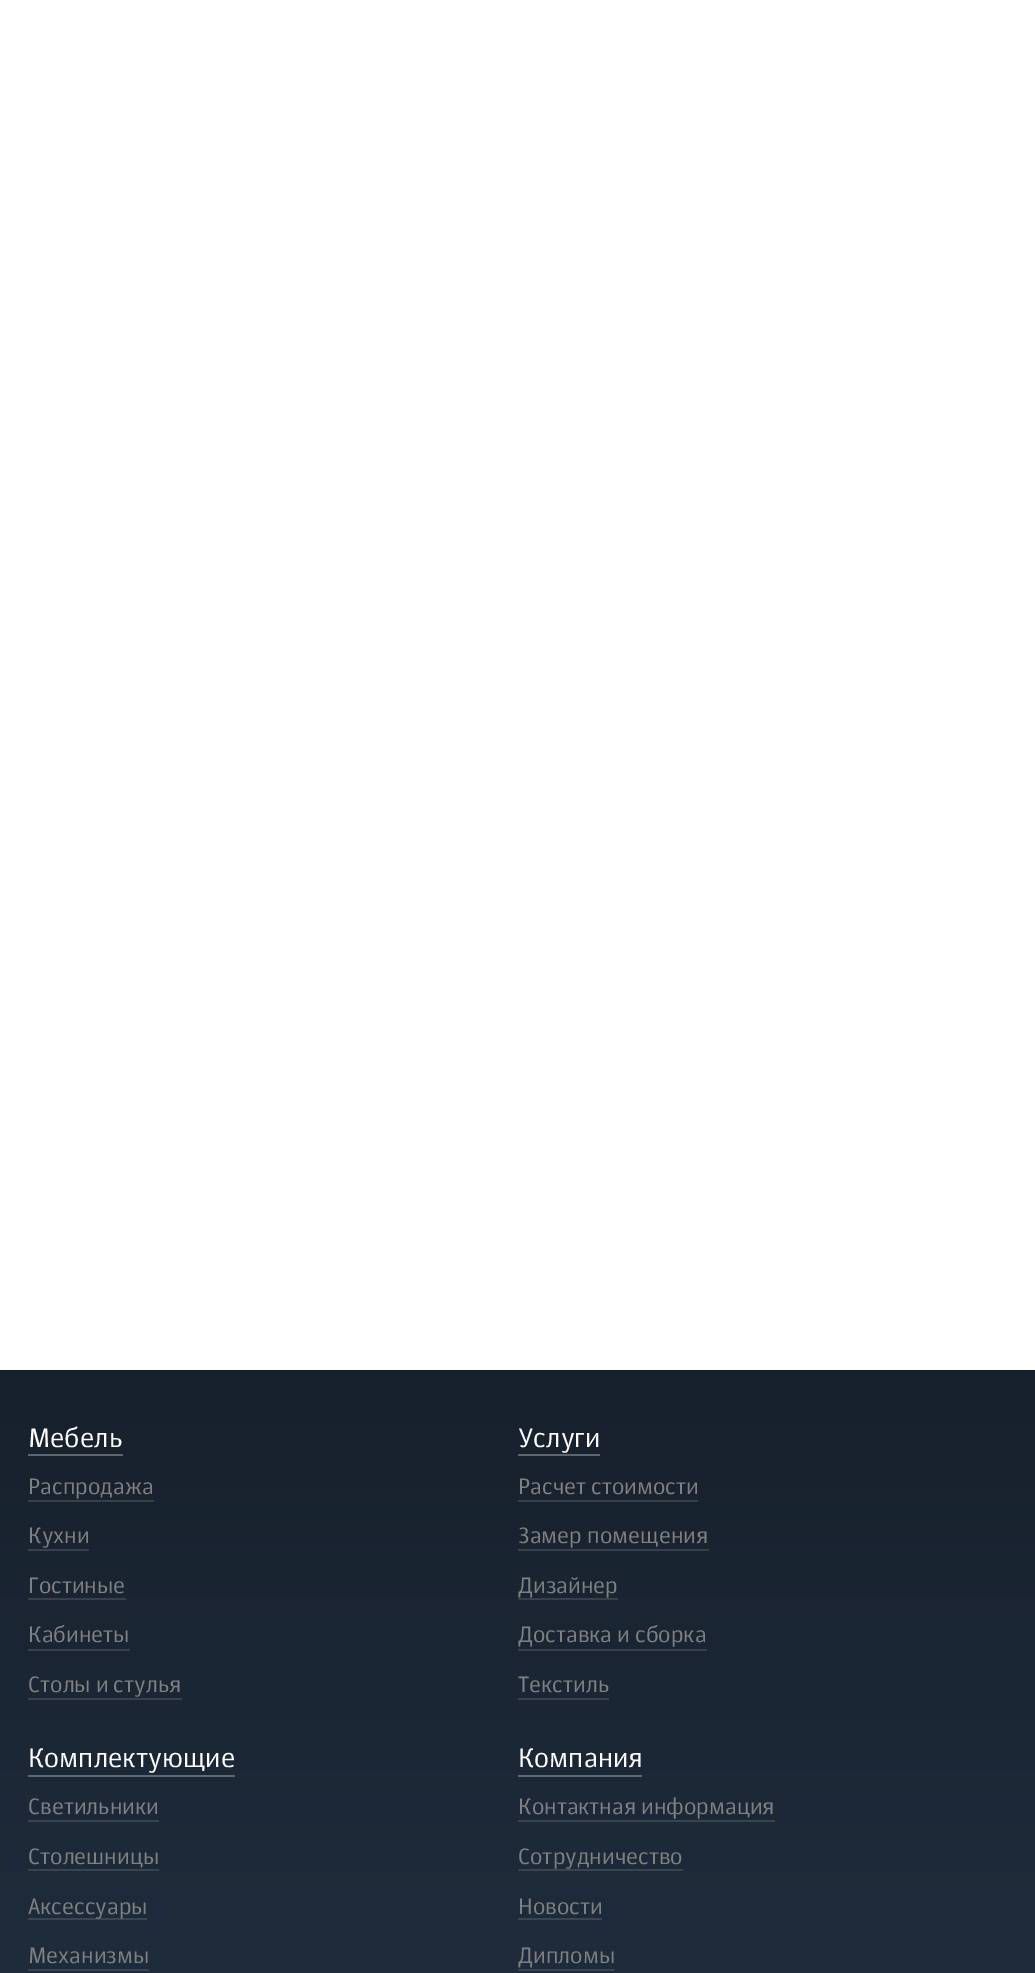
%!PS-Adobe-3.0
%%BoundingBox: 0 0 1035 1973
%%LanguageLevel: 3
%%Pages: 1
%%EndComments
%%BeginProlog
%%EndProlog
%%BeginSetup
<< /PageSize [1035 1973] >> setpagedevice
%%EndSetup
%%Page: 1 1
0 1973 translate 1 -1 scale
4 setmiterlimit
1 setgray
0 0 1035 1973 rectfill
gsave newpath 0 1370 moveto 1035 1370 lineto 1035 1973 lineto 0 1973 lineto closepath clip newpath
<< /ShadingType 2 /ColorSpace /DeviceRGB /Coords [518 1370 518 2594] /Extend [true true] /Function << /FunctionType 2 /Domain [0 1] /C0 [0.09 0.129 0.176] /C1 [0.149 0.216 0.286] /N 1 >> >> shfill grestore
0.365 0.396 0.427 setrgbcolor
28 1454 95 2 rectfill
0.22 0.247 0.286 setrgbcolor
28 1500 126 2 rectfill
0.22 0.251 0.286 setrgbcolor
28 1549 61 2 rectfill
0.22 0.251 0.29 setrgbcolor
28 1598 98 2 rectfill
0.22 0.255 0.294 setrgbcolor
28 1649 102 2 rectfill
0.224 0.259 0.298 setrgbcolor
28 1698 154 2 rectfill
0.365 0.396 0.427 setrgbcolor
518 1454 82 2 rectfill
0.22 0.247 0.286 setrgbcolor
518 1500 180 2 rectfill
0.22 0.251 0.286 setrgbcolor
518 1549 191 2 rectfill
0.22 0.251 0.29 setrgbcolor
518 1598 100 2 rectfill
0.22 0.255 0.294 setrgbcolor
518 1649 189 2 rectfill
0.224 0.259 0.298 setrgbcolor
518 1698 91 2 rectfill
0.376 0.412 0.447 setrgbcolor
28 1775 207 2 rectfill
0.227 0.263 0.306 setrgbcolor
28 1820 131 2 rectfill
0.227 0.267 0.306 setrgbcolor
28 1869 131 2 rectfill
0.231 0.271 0.314 setrgbcolor
28 1918 119 2 rectfill
28 1969 121 2 rectfill
0.376 0.412 0.447 setrgbcolor
518 1775 124 2 rectfill
0.227 0.263 0.306 setrgbcolor
518 1820 257 2 rectfill
0.227 0.267 0.306 setrgbcolor
518 1869 165 2 rectfill
0.231 0.271 0.314 setrgbcolor
518 1918 84 2 rectfill
518 1969 96 2 rectfill
/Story-Regular [26.5 0 0 -26.5 0 0] selectfont
1 setgray
28 1447 moveto (Мебель) show
/Story-Regular [22 0 0 -22 0 0] selectfont
0.498 0.502 0.51 setrgbcolor
28 1494 moveto (Распродажа) show
28 1543 moveto (Кухни) show
28 1593 moveto (Гостиные) show
28 1642 moveto (Кабинеты) show
28 1692 moveto (Столы и стулья) show
/Story-Regular [26.5 0 0 -26.5 0 0] selectfont
1 setgray
518 1447 moveto (Услуги) show
/Story-Regular [22 0 0 -22 0 0] selectfont
0.498 0.502 0.51 setrgbcolor
518 1494 moveto (Расчет стоимости) show
518 1543 moveto (Замер помещения) show
518 1593 moveto (Дизайнер) show
518 1642 moveto (Доставка и сборка) show
518 1692 moveto (Текстиль) show
/Story-Regular [26.5 0 0 -26.5 0 0] selectfont
1 setgray
28 1767 moveto (Комплектующие) show
/Story-Regular [22 0 0 -22 0 0] selectfont
0.498 0.502 0.51 setrgbcolor
28 1814 moveto (Светильники) show
28 1864 moveto (Столешницы) show
28 1914 moveto (Аксессуары) show
28 1963 moveto (Механизмы) show
/Story-Regular [26.5 0 0 -26.5 0 0] selectfont
1 setgray
518 1767 moveto (Компания) show
/Story-Regular [22 0 0 -22 0 0] selectfont
0.498 0.502 0.51 setrgbcolor
518 1814 moveto (Контактная информация) show
518 1864 moveto (Сотрудничество) show
518 1914 moveto (Новости) show
518 1963 moveto (Дипломы) show
showpage
%%EOF
